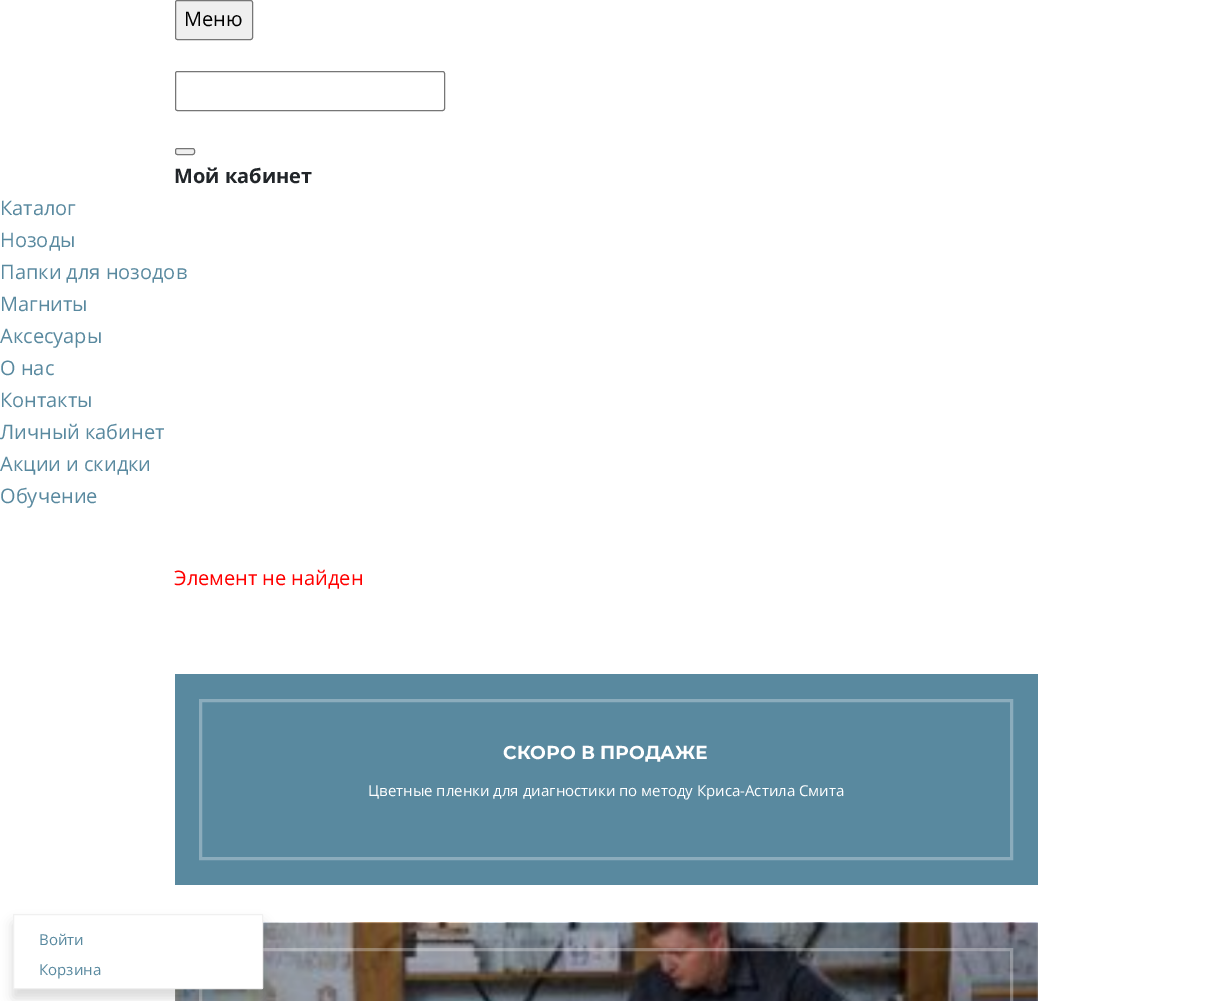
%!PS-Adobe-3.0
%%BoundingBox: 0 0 1211 1001
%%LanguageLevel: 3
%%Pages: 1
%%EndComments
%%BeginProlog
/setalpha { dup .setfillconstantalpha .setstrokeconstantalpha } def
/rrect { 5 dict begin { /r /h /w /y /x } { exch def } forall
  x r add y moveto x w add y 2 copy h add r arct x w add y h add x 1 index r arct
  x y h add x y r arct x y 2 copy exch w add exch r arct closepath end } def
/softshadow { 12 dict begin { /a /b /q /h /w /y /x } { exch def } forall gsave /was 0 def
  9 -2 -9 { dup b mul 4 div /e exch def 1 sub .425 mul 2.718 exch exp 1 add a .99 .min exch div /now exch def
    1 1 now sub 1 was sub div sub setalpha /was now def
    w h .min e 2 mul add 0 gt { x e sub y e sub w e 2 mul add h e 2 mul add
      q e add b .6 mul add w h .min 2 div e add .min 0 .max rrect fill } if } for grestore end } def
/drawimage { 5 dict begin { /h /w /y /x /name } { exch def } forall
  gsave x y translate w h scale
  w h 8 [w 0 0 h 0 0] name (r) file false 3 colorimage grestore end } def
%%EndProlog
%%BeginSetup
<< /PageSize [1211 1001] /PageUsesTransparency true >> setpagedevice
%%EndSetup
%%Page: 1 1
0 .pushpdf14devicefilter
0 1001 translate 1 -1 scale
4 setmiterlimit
1 setgray
0 0 1211 1001 rectfill
0.937 setgray
175.5 0.5 77 39 2 rrect gsave fill grestore
0.463 setgray
stroke
175.5 71.5 269 39 2 rrect stroke
0.937 setgray
175.5 148.5 19 6 2 rrect gsave fill grestore
0.463 setgray
stroke
(images/1.raw) 175 922 863 79 drawimage
0.3 setalpha
1 setgray
3 setlinewidth
200.5 949.5 811 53 rectstroke
1 setalpha
0 setgray
13 923 250 75 1 6 0.15 softshadow
1 setgray
13.5 914.5 249 74 0.5 rrect gsave fill grestore
0.941 setgray
1 setlinewidth
stroke
0.349 0.537 0.624 setrgbcolor
175 674 863 211 rectfill
0.545 0.675 0.737 setrgbcolor
3 setlinewidth
200.5 700.5 811 158 rectstroke
/OpenSans-Regular [20 0 0 -20 0 0] selectfont
0 setgray
184 26 moveto (Меню) show
/OpenSans-Bold [20 0 0 -20 0 0] selectfont
0.129 0.145 0.161 setrgbcolor
174 183 moveto (Мой кабинет) show
/OpenSans-Regular [20 0 0 -20 0 0] selectfont
0.349 0.537 0.624 setrgbcolor
0 215 moveto (Каталог) show
0 247 moveto (Нозоды) show
0 279 moveto (Папки для нозодов) show
0 311 moveto (Магниты) show
0 343 moveto (Аксесуары) show
0 375 moveto (О нас) show
0 407 moveto (Контакты) show
0 439 moveto (Личный кабинет) show
0 471 moveto (Акции и скидки) show
0 503 moveto (Обучение) show
1 0 0 setrgbcolor
174 585 moveto (Элемент не найден) show
/OpenSans-Regular [15 0 0 -15 0 0] selectfont
0.349 0.537 0.624 setrgbcolor
39 945 moveto (Войти) show
39 975 moveto (Корзина) show
/Montserrat-Bold [18.75 0 0 -18.75 0 0] selectfont
1 setgray
503 759 moveto (СКОРО В ПРОДАЖЕ) show
/OpenSans-Regular [15 0 0 -15 0 0] selectfont
368 796 moveto (Цветные пленки для диагностики по методу Криса-Астила Смита) show
.poppdf14devicefilter showpage
%%EOF
